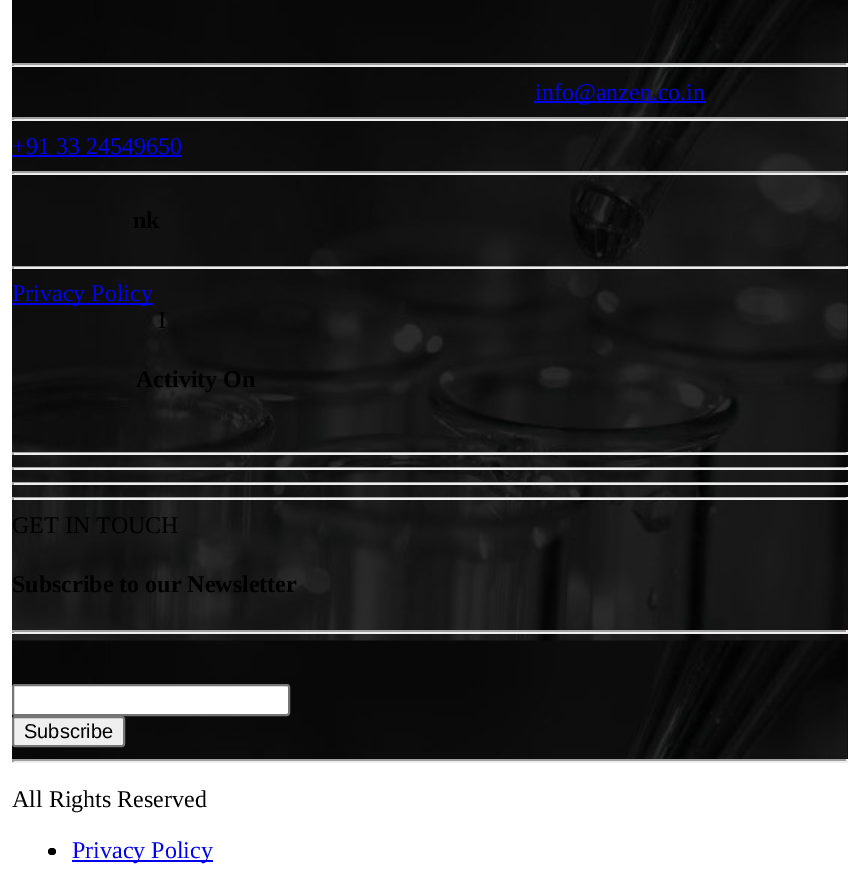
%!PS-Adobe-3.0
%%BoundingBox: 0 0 859 888
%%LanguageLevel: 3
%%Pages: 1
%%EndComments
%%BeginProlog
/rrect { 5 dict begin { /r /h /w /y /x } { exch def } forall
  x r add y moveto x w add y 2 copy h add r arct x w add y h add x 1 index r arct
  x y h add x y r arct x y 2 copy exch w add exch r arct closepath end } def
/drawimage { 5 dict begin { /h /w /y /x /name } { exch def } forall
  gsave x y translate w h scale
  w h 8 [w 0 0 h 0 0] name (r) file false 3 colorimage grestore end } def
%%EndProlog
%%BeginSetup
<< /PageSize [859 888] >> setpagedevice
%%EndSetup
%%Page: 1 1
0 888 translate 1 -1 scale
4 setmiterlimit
1 setgray
0 0 859 888 rectfill
0.086 0.012 0.012 setrgbcolor
847 0 1 759 rectfill
(images/1.raw) 12 0 836 759 drawimage
0.624 setgray
12 63 836 2 rectfill
0.933 setgray
846 63 2 3 rectfill
12 65 836 2 rectfill
0.624 setgray
12 63 2 3 rectfill
0 0 0.933 setrgbcolor
534 101 171 2 rectfill
0.624 setgray
12 117 836 2 rectfill
0.933 setgray
846 117 2 3 rectfill
12 119 836 2 rectfill
0.624 setgray
12 117 2 3 rectfill
0 0 0.933 setrgbcolor
12 155 170 2 rectfill
0.624 setgray
12 171 836 2 rectfill
0.933 setgray
846 171 2 3 rectfill
12 173 836 2 rectfill
0.624 setgray
12 171 2 3 rectfill
12 266 836 1 rectfill
0.933 setgray
846 266 2 3 rectfill
12 267 836 2 rectfill
0.624 setgray
12 266 2 3 rectfill
0 0 0.933 setrgbcolor
12 303 141 2 rectfill
0.624 setgray
12 452 836 1 rectfill
0.933 setgray
846 452 2 3 rectfill
12 453 836 2 rectfill
0.624 setgray
12 452 2 3 rectfill
12 467 836 1 rectfill
0.933 setgray
846 467 2 3 rectfill
12 468 836 2 rectfill
0.624 setgray
12 467 2 3 rectfill
12 482 836 1 rectfill
0.933 setgray
846 482 2 3 rectfill
12 483 836 2 rectfill
0.624 setgray
12 482 2 3 rectfill
12 497 836 1 rectfill
0.933 setgray
846 497 2 3 rectfill
12 498 836 2 rectfill
0.624 setgray
12 497 2 3 rectfill
12 630 836 2 rectfill
0.933 setgray
846 630 2 3 rectfill
12 632 836 2 rectfill
0.624 setgray
12 630 2 3 rectfill
1 setgray
13 685 276 30 2 rrect gsave fill grestore
0.463 setgray
2 setlinewidth
stroke
0.937 setgray
13 717 111 29 2 rrect gsave fill grestore
0.463 setgray
stroke
0.624 setgray
12 759 836 2 rectfill
0.933 setgray
846 759 2 3 rectfill
12 761 836 2 rectfill
0.624 setgray
12 759 2 3 rectfill
0 setgray
48 848 8 7 3.5 rrect fill
0 0 0.933 setrgbcolor
72 860 141 2 rectfill
/LiberationSerif-Regular [24 0 0 -24 0 0] selectfont
535 100 moveto (info@anzen.co.in) show
12 154 moveto (+91 33 24549650) show
/LiberationSerif-Bold [24 0 0 -24 0 0] selectfont
0 setgray
133 228 moveto (nk) show
/LiberationSerif-Regular [24 0 0 -24 0 0] selectfont
0 0 0.933 setrgbcolor
12 301 moveto (Privacy Policy) show
0 setgray
158 328 moveto (I) show
/LiberationSerif-Bold [24 0 0 -24 0 0] selectfont
136 387 moveto (Activity On) show
/LiberationSerif-Regular [24 0 0 -24 0 0] selectfont
12 533 moveto (GET IN TOUCH) show
/LiberationSerif-Bold [24 0 0 -24 0 0] selectfont
12 592 moveto (Subscribe to our Newsletter) show
/LiberationSans-Regular [20 0 0 -20 0 0] selectfont
24 738 moveto (Subscribe) show
/LiberationSerif-Regular [24 0 0 -24 0 0] selectfont
12 807 moveto (All Rights Reserved) show
0 0 0.933 setrgbcolor
72 858 moveto (Privacy Policy) show
showpage
%%EOF
